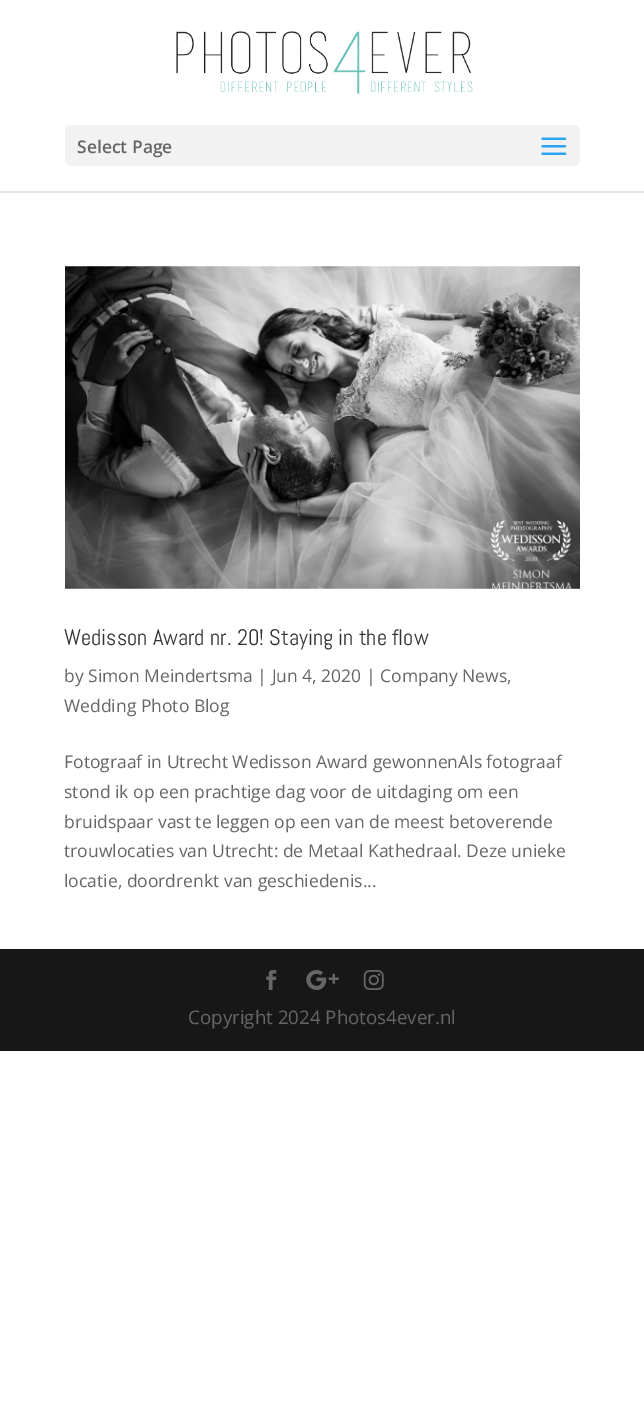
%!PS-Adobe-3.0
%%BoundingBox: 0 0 644 1425
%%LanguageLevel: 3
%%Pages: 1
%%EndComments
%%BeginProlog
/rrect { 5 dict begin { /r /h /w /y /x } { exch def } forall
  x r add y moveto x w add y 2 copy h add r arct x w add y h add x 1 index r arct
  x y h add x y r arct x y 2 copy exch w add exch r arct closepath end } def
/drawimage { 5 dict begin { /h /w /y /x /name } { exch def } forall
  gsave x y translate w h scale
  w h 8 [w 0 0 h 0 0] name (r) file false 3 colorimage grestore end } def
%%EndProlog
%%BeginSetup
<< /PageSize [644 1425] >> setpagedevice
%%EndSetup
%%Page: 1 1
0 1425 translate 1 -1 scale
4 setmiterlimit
1 setgray
0 0 644 1425 rectfill
0.902 setgray
0 191 644 2 rectfill
(images/1.raw) 176 31 297 63 drawimage
0.949 setgray
65 125 515 41 6 rrect fill
(images/2.raw) 541 137 26 18 drawimage
(images/3.raw) 65 266 515 323 drawimage
0.09 setgray
0 949 644 102 rectfill
(images/4.raw) 266 970 11 20 drawimage
(images/5.raw) 306 970 33 20 drawimage
(images/6.raw) 363 970 21 20 drawimage
/OpenSans-SemiBold [17.5 0 0 -17.5 0 0] selectfont
0.4 setgray
77 153 moveto (Select Page) show
/Abel-Regular [22.5 0 0 -22.5 0 0] selectfont
0.2 setgray
64 645 moveto (Wedisson Award nr. 20! Staying in the flow) show
/OpenSans-Regular [17.5 0 0 -17.5 0 0] selectfont
0.4 setgray
64 682 moveto (by Simon Meindertsma | Jun 4, 2020 | Company News,) show
64 712 moveto (Wedding Photo Blog) show
64 768 moveto (Fotograaf in Utrecht Wedisson Award gewonnenAls fotograaf) show
64 798 moveto (stond ik op een prachtige dag voor de uitdaging om een) show
64 828 moveto (bruidspaar vast te leggen op een van de meest betoverende) show
64 857 moveto (trouwlocaties van Utrecht: de Metaal Kathedraal. Deze unieke) show
64 887 moveto (locatie, doordrenkt van geschiedenis...) show
/OpenSans-Regular [18.75 0 0 -18.75 0 0] selectfont
188 1024 moveto (Copyright 2024 Photos4ever.nl) show
showpage
%%EOF
